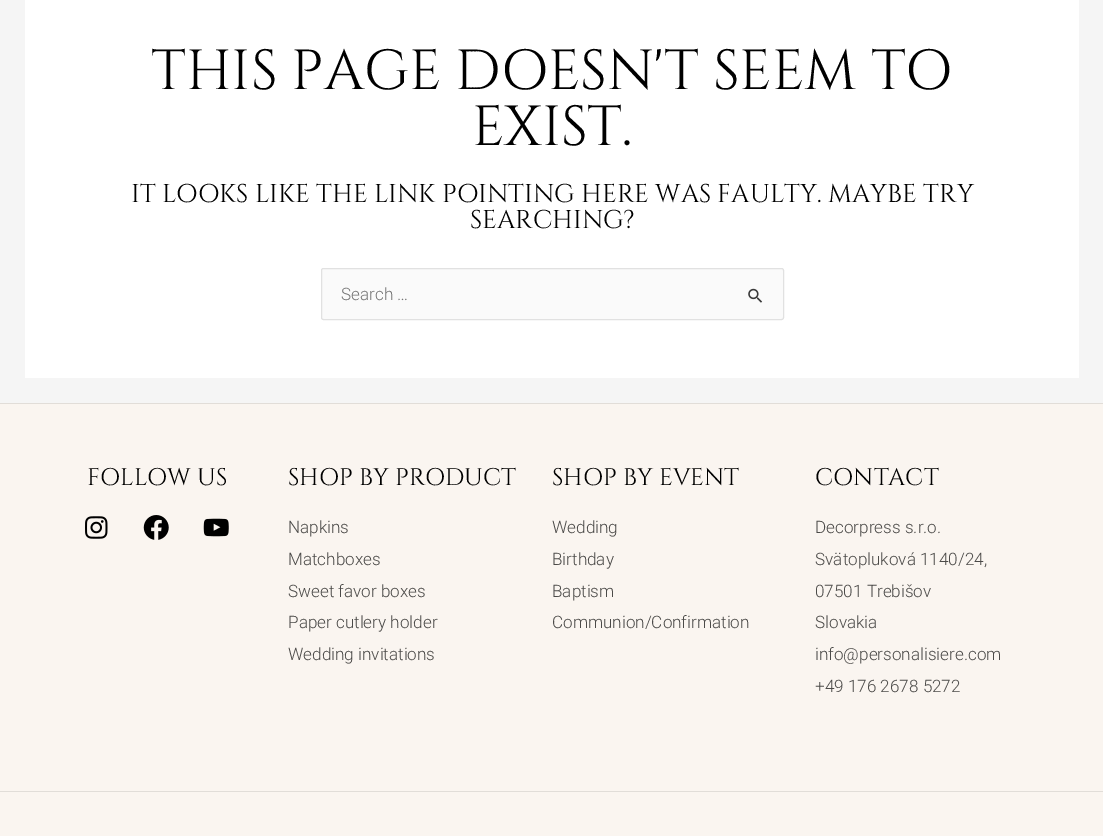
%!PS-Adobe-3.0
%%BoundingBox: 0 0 1103 836
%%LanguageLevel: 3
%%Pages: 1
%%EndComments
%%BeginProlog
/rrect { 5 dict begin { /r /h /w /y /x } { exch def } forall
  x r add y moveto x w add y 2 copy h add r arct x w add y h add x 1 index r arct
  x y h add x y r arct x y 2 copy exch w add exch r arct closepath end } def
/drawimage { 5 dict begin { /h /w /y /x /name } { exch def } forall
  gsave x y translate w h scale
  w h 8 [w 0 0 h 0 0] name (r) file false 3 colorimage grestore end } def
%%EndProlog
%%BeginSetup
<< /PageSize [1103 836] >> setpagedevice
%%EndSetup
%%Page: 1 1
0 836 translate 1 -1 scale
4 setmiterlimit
0.961 setgray
0 0 1103 836 rectfill
1 setgray
25 0 1054 378 rectfill
0.98 setgray
321.5 268.5 462 51 2 rrect gsave fill grestore
0.882 setgray
stroke
(images/1.raw) 748 288 15 15 drawimage
0.98 0.961 0.941 setrgbcolor
0 404 1103 432 rectfill
0.882 0.867 0.847 setrgbcolor
0 403 1103 1 rectfill
(images/2.raw) 85 516 23 23 drawimage
(images/3.raw) 143 515 26 25 drawimage
(images/4.raw) 203 518 26 19 drawimage
0 791 1103 1 rectfill
/Cinzel-Regular [56.25 0 0 -56.25 0 0] selectfont
0 setgray
151 89 moveto (THIS PAGE DOESN'T SEEM TO) show
472 145 moveto (EXIST.) show
/Cinzel-Regular [25.65 0 0 -25.65 0 0] selectfont
131 202 moveto (IT LOOKS LIKE THE LINK POINTING HERE WAS FAULTY. MAYBE TRY) show
470 228 moveto (SEARCHING?) show
/Roboto-Light [17.1 0 0 -17.1 0 0] selectfont
0.459 setgray
341 300 moveto (Search …) show
/Cinzel-Regular [24 0 0 -24 0 0] selectfont
0 setgray
87 485 moveto (FOLLOW US) show
288 485 moveto (SHOP BY PRODUCT) show
/Roboto-Light [17.1 0 0 -17.1 0 0] selectfont
0.294 0.29 0.282 setrgbcolor
288 533 moveto (Napkins) show
288 565 moveto (Matchboxes) show
288 597 moveto (Sweet favor boxes) show
288 628 moveto (Paper cutlery holder) show
288 660 moveto (Wedding invitations) show
/Cinzel-Regular [24 0 0 -24 0 0] selectfont
0 setgray
552 485 moveto (SHOP BY EVENT) show
/Roboto-Light [17.1 0 0 -17.1 0 0] selectfont
0.294 0.29 0.282 setrgbcolor
552 533 moveto (Wedding) show
552 565 moveto (Birthday) show
552 597 moveto (Baptism) show
552 628 moveto (Communion/Confirmation) show
/Cinzel-Regular [24 0 0 -24 0 0] selectfont
0 setgray
815 485 moveto (CONTACT) show
/Roboto-Light [17.1 0 0 -17.1 0 0] selectfont
0.294 0.29 0.282 setrgbcolor
815 533 moveto (Decorpress s.r.o.) show
815 565 moveto (Svätopluková 1140/24,) show
815 597 moveto (07501 Trebišov) show
815 628 moveto (Slovakia) show
815 660 moveto (info@personalisiere.com) show
815 692 moveto (+49 176 2678 5272) show
showpage
%%EOF
